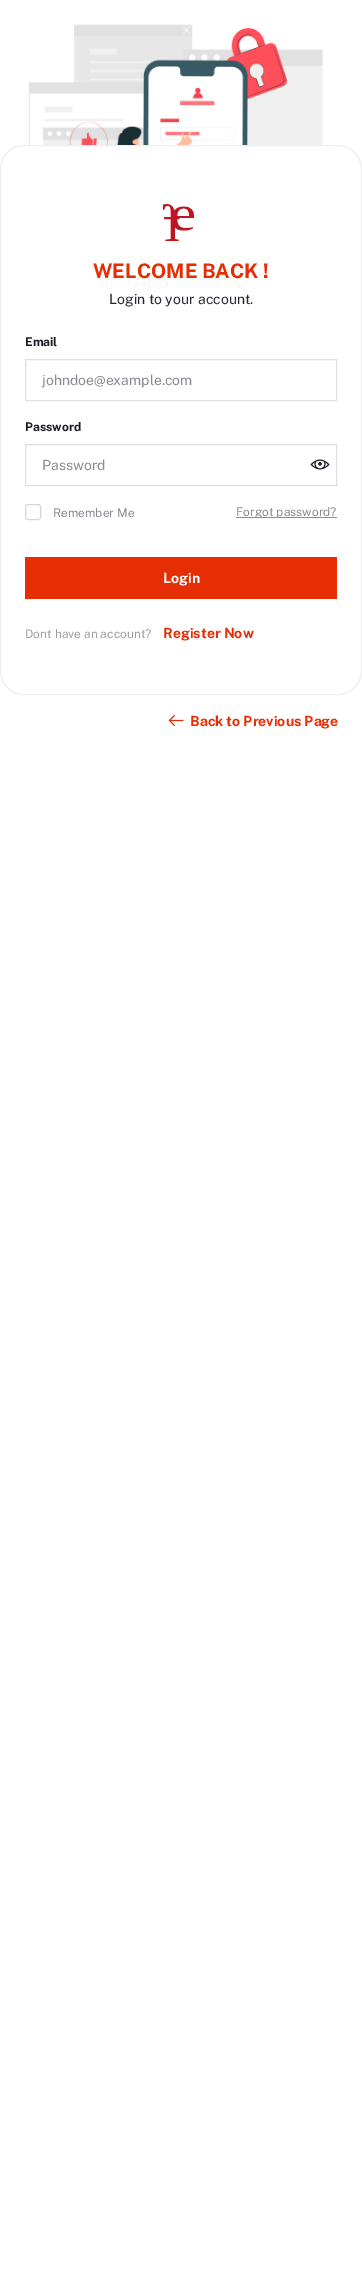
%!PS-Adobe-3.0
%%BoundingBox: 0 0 362 2280
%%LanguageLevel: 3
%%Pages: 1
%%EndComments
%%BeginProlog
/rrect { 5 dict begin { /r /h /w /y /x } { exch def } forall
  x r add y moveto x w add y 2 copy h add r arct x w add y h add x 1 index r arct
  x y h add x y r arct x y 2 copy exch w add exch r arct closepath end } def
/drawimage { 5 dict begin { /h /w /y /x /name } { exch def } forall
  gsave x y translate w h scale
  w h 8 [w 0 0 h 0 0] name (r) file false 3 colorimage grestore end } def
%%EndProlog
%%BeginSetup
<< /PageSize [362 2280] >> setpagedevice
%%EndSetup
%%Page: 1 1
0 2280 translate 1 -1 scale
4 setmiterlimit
1 setgray
0 0 362 2280 rectfill
(images/1.raw) 28 24 311 122 drawimage
0.5 145.5 361 549 23.5 rrect gsave fill grestore
0.929 0.929 0.949 setrgbcolor
stroke
(images/2.raw) 163 204 32 37 drawimage
0.875 0.875 0.902 setrgbcolor
25.5 359.5 311 41 rectstroke
25.5 444.5 311 41 rectstroke
(images/3.raw) 310 459 20 11 drawimage
0.82 0.843 0.886 setrgbcolor
25.5 504.5 15 15 2.5 rrect stroke
0.553 setgray
236 517 101 1 rectfill
0.902 0.18 0.016 setrgbcolor
25 557 312 42 rectfill
(images/4.raw) 168 714 16 13 drawimage
/PublicSans-Bold [20 0 0 -20 0 0] selectfont
93 278 moveto (WELCOME BACK !) show
/PublicSans-Regular [14 0 0 -14 0 0] selectfont
0.161 0.161 0.2 setrgbcolor
109 304 moveto (Login to your account.) show
/PublicSans-Bold [12 0 0 -12 0 0] selectfont
0.106 0.106 0.157 setrgbcolor
25 346 moveto (Email) show
/PublicSans-Regular [14 0 0 -14 0 0] selectfont
0.537 0.545 0.573 setrgbcolor
42 385 moveto (johndoe@example.com) show
/PublicSans-Bold [12 0 0 -12 0 0] selectfont
0.106 0.106 0.157 setrgbcolor
25 431 moveto (Password) show
/PublicSans-Regular [14 0 0 -14 0 0] selectfont
0.537 0.545 0.573 setrgbcolor
42 470 moveto (Password) show
/PublicSans-Regular [12 0 0 -12 0 0] selectfont
53 517 moveto (Remember Me) show
236 516 moveto (Forgot password?) show
/PublicSans-Bold [14 0 0 -14 0 0] selectfont
1 setgray
163 583 moveto (Login) show
/PublicSans-Regular [12 0 0 -12 0 0] selectfont
0.616 0.616 0.651 setrgbcolor
25 638 moveto (Dont have an account?) show
/PublicSans-Bold [14 0 0 -14 0 0] selectfont
0.902 0.18 0.016 setrgbcolor
163 638 moveto (Register Now) show
190 726 moveto (Back to Previous Page) show
showpage
%%EOF
